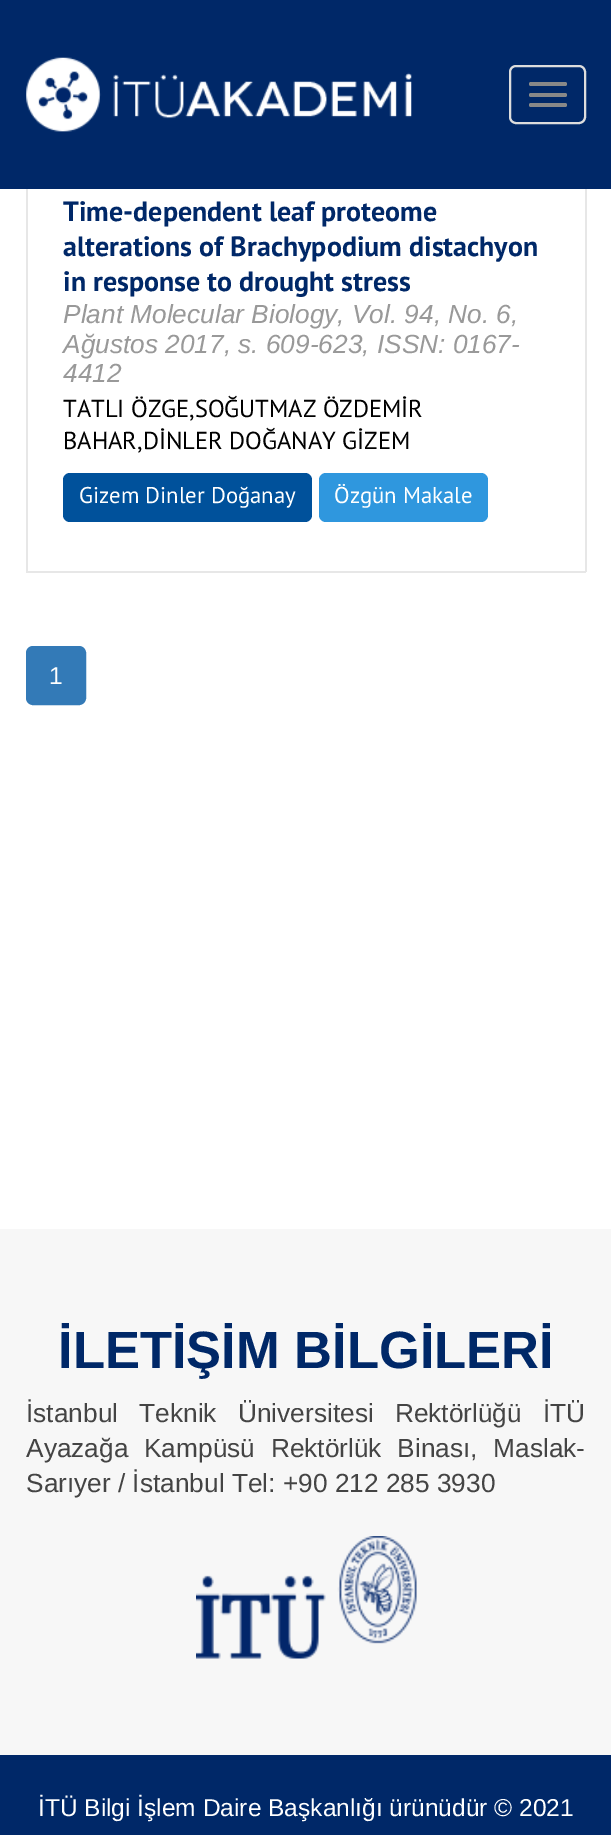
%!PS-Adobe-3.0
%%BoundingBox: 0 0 611 1835
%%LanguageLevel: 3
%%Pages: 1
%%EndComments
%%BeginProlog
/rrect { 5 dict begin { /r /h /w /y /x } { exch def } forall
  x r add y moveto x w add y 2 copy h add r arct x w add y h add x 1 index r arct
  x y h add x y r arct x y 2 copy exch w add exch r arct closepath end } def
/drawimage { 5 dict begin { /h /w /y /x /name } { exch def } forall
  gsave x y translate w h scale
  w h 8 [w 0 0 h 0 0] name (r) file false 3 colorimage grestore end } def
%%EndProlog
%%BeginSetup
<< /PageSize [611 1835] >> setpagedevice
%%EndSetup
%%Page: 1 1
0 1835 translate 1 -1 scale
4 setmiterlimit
1 setgray
0 0 611 1835 rectfill
0 0.157 0.408 setrgbcolor
0 0 611 189 rectfill
(images/1.raw) 26 57 386 75 drawimage
0.867 setgray
2 setlinewidth
510 66 75 57 6 rrect stroke
0.533 setgray
529 82 38 4 2 rrect fill
529 93 38 4 2 rrect fill
529 103 38 4 2 rrect fill
0.906 setgray
585 189 2 383 rectfill
26 571 560 2 rectfill
26 189 2 383 rectfill
0 0.318 0.608 setrgbcolor
63 473 249 49 7 rrect fill
0.184 0.592 0.871 setrgbcolor
319 473 169 49 7 rrect fill
0.2 0.478 0.718 setrgbcolor
27 647 58 57 6 rrect gsave fill grestore
stroke
0.969 setgray
0 1229 611 526 rectfill
(images/2.raw) 196 1536 221 123 drawimage
0 0.157 0.408 setrgbcolor
0 1755 611 80 rectfill
/PTSans-Bold [28 0 0 -28 0 0] selectfont
63 221 moveto (Time-dependent leaf proteome) show
63 256 moveto (alterations of Brachypodium distachyon) show
63 291 moveto (in response to drought stress) show
/LiberationSans-Italic [26.25 0 0 -26.25 0 0] selectfont
0.6 setgray
63 323 moveto (Plant Molecular Biology, Vol. 94, No. 6,) show
63 353 moveto (Ağustos 2017, s. 609-623, ISSN: 0167-) show
63 382 moveto (4412) show
/PTSans-Regular [24.5 0 0 -24.5 0 0] selectfont
0 setgray
63 417 moveto (TATLI ÖZGE,SOĞUTMAZ ÖZDEMİR) show
63 449 moveto (BAHAR,DİNLER DOĞANAY GİZEM) show
/PTSans-Regular [22.75 0 0 -22.75 0 0] selectfont
1 setgray
79 503 moveto (Gizem Dinler Doğanay) show
334 503 moveto (Özgün Makale) show
/LiberationSans-Regular [24.5 0 0 -24.5 0 0] selectfont
49 684 moveto (1) show
/LiberationSans-Bold [52.5 0 0 -52.5 0 0] selectfont
0 0.157 0.408 setrgbcolor
58 1368 moveto (İLETİŞİM BİLGİLERİ) show
/LiberationSans-Regular [26.25 0 0 -26.25 0 0] selectfont
0.267 setgray
26 1422 moveto 14 0 32 (İstanbul Teknik Üniversitesi Rektörlüğü İTÜ) widthshow
26 1457 moveto 8.5 0 32 (Ayazağa Kampüsü Rektörlük Binası, Maslak-) widthshow
26 1492 moveto (Sarıyer / İstanbul Tel: +90 212 285 3930) show
/LiberationSans-Regular [24.5 0 0 -24.5 0 0] selectfont
1 setgray
38 1816 moveto (İTÜ Bilgi İşlem Daire Başkanlığı ürünüdür © 2021) show
showpage
%%EOF
